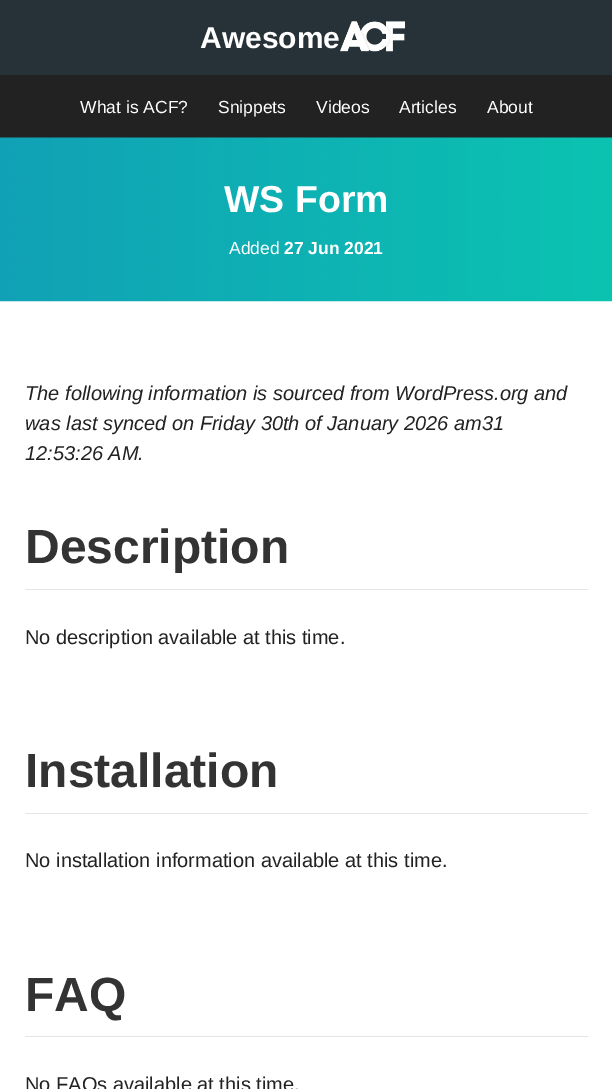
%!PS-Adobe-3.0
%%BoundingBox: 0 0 612 1089
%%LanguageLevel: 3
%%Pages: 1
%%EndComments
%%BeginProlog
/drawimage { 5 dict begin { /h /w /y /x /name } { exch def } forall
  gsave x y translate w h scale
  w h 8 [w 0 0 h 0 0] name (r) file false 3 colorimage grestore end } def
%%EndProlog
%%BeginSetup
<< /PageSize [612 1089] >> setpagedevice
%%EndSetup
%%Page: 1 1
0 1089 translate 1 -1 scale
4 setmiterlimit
1 setgray
0 0 612 1089 rectfill
0.149 0.196 0.22 setrgbcolor
0 0 612 75 rectfill
(images/1.raw) 340 21 65 31 drawimage
0.133 setgray
0 75 612 63 rectfill
(images/2.raw) 0 137 612 165 drawimage
0.898 setgray
25 589 563 1 rectfill
25 813 563 1 rectfill
25 1036 563 1 rectfill
/LiberationSans-Bold [30 0 0 -30 0 0] selectfont
1 setgray
200 48 moveto (Awesome) show
/LiberationSans-Regular [17.5 0 0 -17.5 0 0] selectfont
80 113 moveto (What is ACF?) show
218 113 moveto (Snippets) show
316 113 moveto (Videos) show
399 113 moveto (Articles) show
487 113 moveto (About) show
/LiberationSans-Bold [37.5 0 0 -37.5 0 0] selectfont
224 212 moveto (WS Form) show
/LiberationSans-Regular [17.5 0 0 -17.5 0 0] selectfont
229 254 moveto (Added) show
/LiberationSans-Bold [17.5 0 0 -17.5 0 0] selectfont
284 254 moveto (27 Jun 2021) show
/LiberationSans-Italic [20 0 0 -20 0 0] selectfont
0.133 setgray
25 400 moveto (The following information is sourced from WordPress.org and) show
25 430 moveto (was last synced on Friday 30th of January 2026 am31) show
25 460 moveto (12:53:26 AM.) show
/LiberationSans-Bold [48 0 0 -48 0 0] selectfont
0.2 setgray
25 563 moveto (Description) show
/LiberationSans-Regular [20 0 0 -20 0 0] selectfont
0.133 setgray
25 644 moveto (No description available at this time.) show
/LiberationSans-Bold [48 0 0 -48 0 0] selectfont
0.2 setgray
25 787 moveto (Installation) show
/LiberationSans-Regular [20 0 0 -20 0 0] selectfont
0.133 setgray
25 867 moveto (No installation information available at this time.) show
/LiberationSans-Bold [48 0 0 -48 0 0] selectfont
0.2 setgray
25 1011 moveto (FAQ) show
/LiberationSans-Regular [20 0 0 -20 0 0] selectfont
0.133 setgray
25 1091 moveto (No FAQs available at this time.) show
showpage
%%EOF
